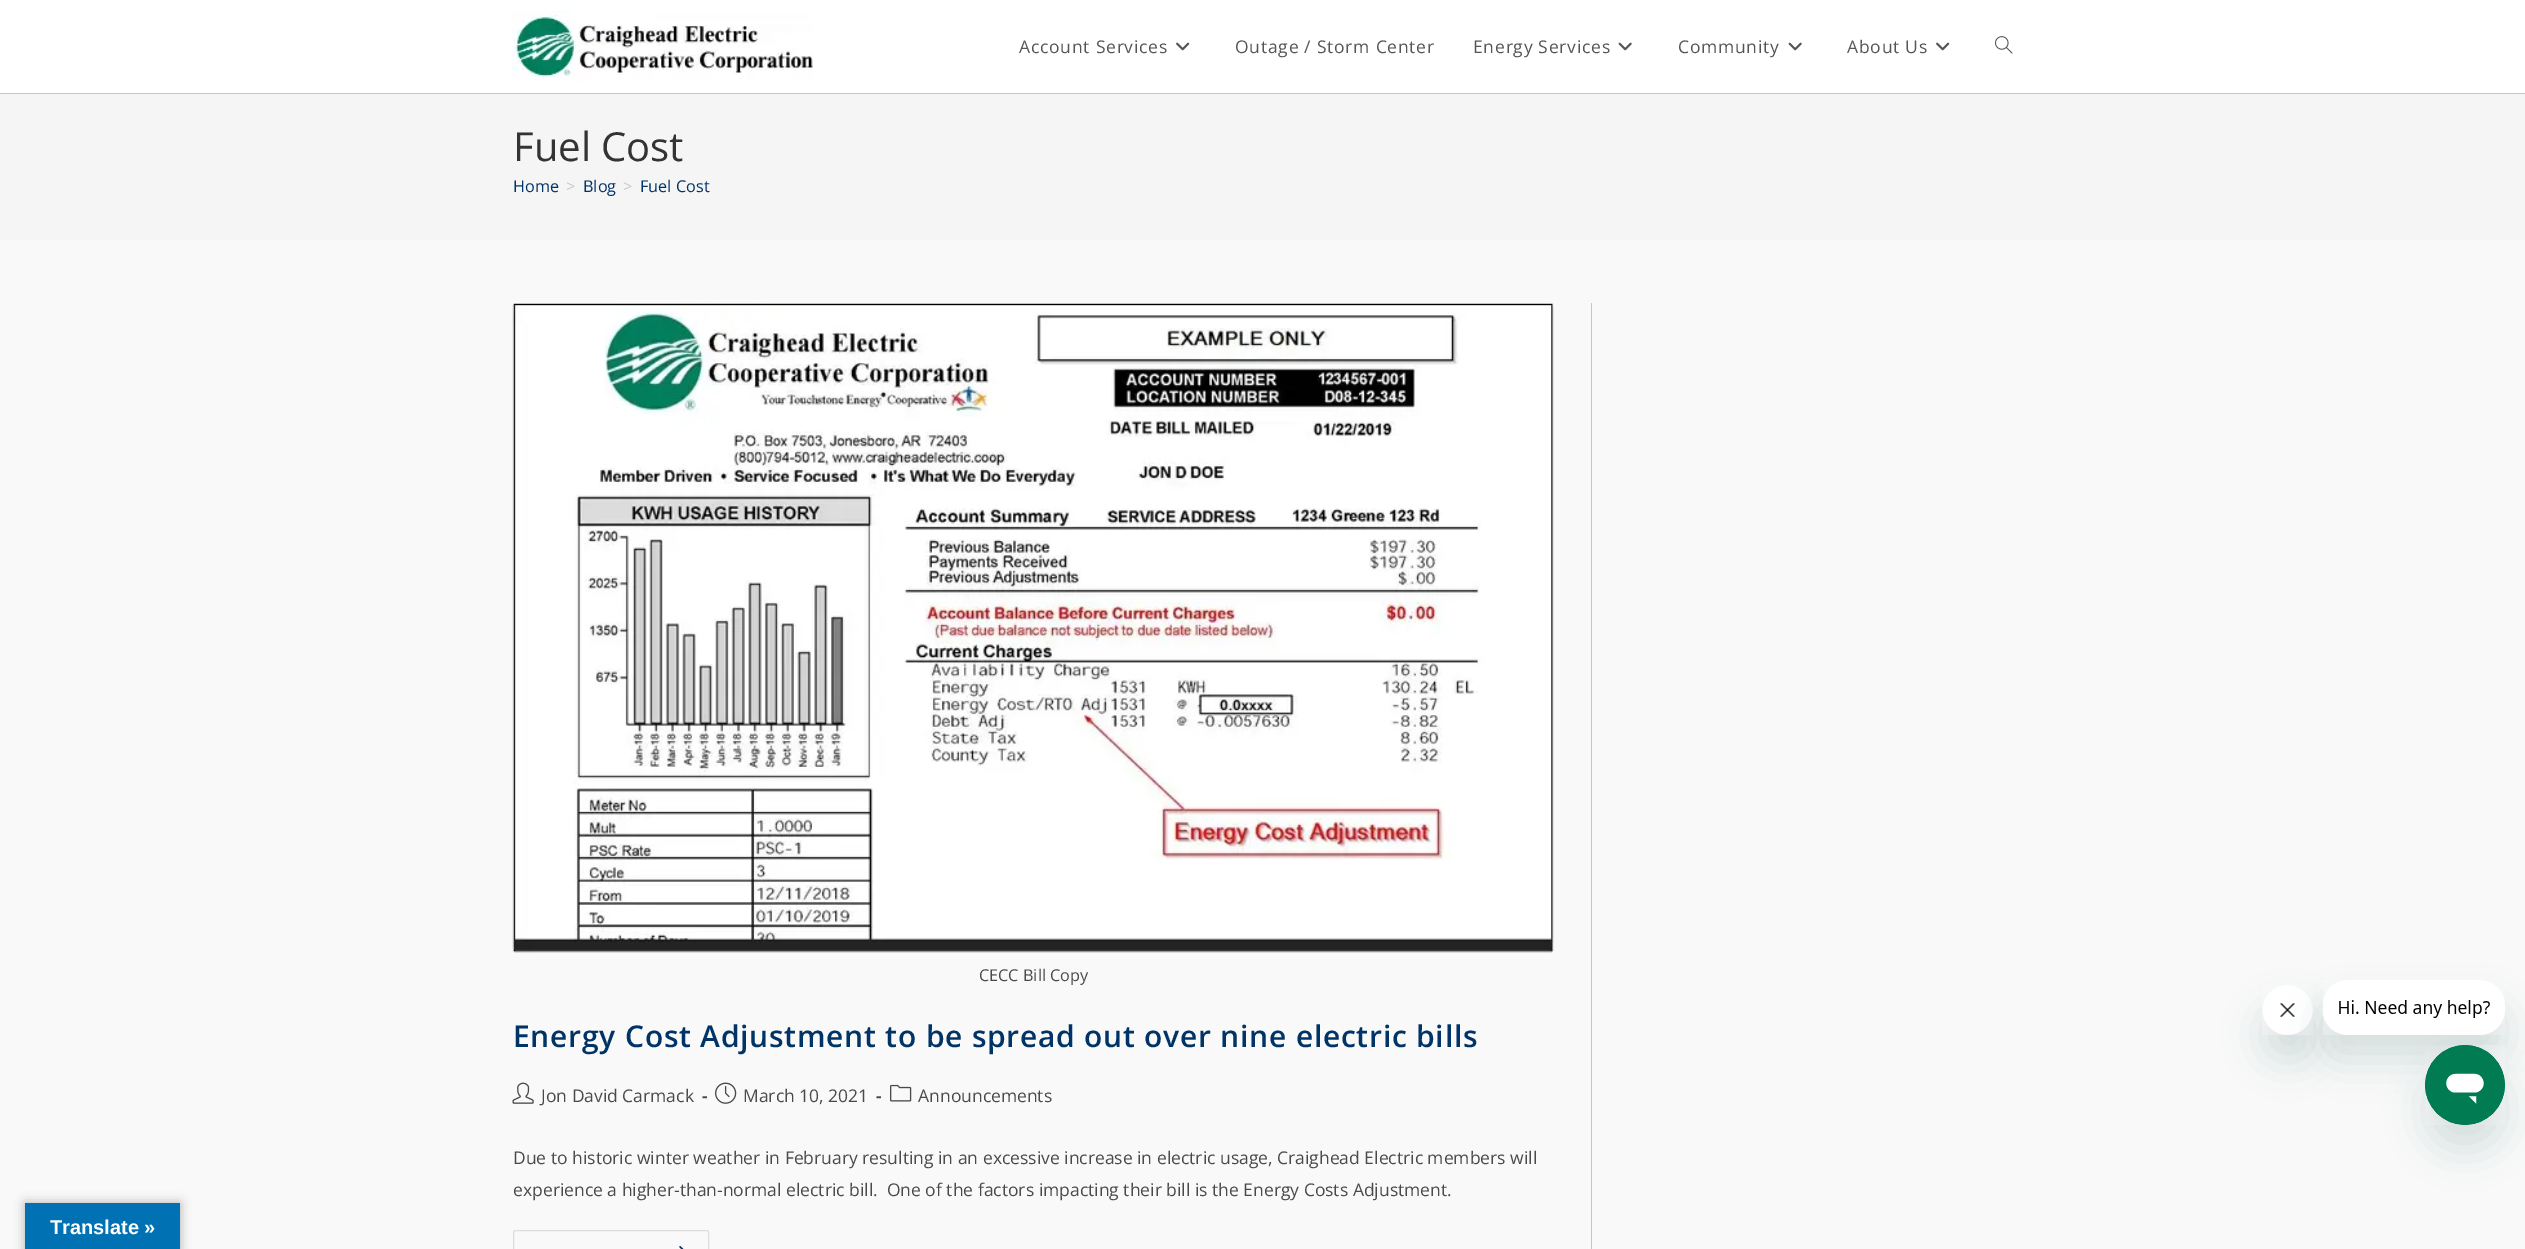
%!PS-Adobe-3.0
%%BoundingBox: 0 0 2525 1249
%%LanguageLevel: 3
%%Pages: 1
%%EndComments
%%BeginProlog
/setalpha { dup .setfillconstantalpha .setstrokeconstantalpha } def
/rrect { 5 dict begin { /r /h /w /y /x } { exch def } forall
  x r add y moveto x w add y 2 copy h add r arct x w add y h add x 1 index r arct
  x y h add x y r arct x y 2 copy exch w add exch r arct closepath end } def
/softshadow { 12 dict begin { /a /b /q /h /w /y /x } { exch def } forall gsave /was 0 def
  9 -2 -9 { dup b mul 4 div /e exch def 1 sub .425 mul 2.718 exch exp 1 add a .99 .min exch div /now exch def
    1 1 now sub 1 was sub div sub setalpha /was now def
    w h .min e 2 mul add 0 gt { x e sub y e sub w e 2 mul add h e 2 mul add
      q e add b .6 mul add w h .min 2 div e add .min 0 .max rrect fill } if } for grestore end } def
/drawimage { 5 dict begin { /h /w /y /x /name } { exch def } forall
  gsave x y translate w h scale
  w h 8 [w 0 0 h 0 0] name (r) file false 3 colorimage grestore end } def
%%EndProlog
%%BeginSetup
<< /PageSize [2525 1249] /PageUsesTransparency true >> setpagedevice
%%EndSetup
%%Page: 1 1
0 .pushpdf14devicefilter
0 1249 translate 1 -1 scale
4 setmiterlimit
0.976 setgray
0 0 2525 1249 rectfill
1 setgray
0 0 2525 93 rectfill
0.776 setgray
0 93 2525 1 rectfill
(images/1.raw) 512 10 301 71 drawimage
(images/2.raw) 1176 42 14 9 drawimage
(images/3.raw) 1618 42 14 9 drawimage
(images/3.raw) 1788 42 14 9 drawimage
(images/2.raw) 1936 42 14 9 drawimage
(images/4.raw) 1995 36 18 18 drawimage
0.961 setgray
0 94 2525 146 rectfill
0.776 setgray
1591 303 1 946 rectfill
(images/5.raw) 512 303 1042 650 drawimage
(images/6.raw) 512 1082 22 22 drawimage
(images/7.raw) 715 1082 22 22 drawimage
(images/8.raw) 890 1084 22 18 drawimage
0.867 setgray
513.5 1230.5 195 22 2 rrect stroke
(images/9.raw) 679 1246 5 3 drawimage
0.09 0.286 0.302 setrgbcolor
2263 1010 50 50 25 19 0.15 softshadow
(images/11.raw) 2262 985 51 50 drawimage
2323 1005 182 55 25 19 0.15 softshadow
(images/10.raw) 2323 980 182 55 drawimage
2425 1070 80 80 40 19 0.15 softshadow
(images/12.raw) 2425 1045 80 80 drawimage
0 setgray
25 1203 155 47 0 5.5 0.3 softshadow
0 0.443 0.702 setrgbcolor
25 1203 155 46 rectfill
/OpenSans-Regular [17.5 0 0 -17.5 0 0] selectfont
0.333 setgray
1019 53 moveto 0.75 0 (Account Services) ashow
1235 53 moveto 0.75 0 (Outage / Storm Center) ashow
1473 53 moveto 0.75 0 (Energy Services) ashow
1678 53 moveto 0.75 0 (Community) ashow
1847 53 moveto 0.75 0 (About Us) ashow
/OpenSans-Regular [40 0 0 -40 0 0] selectfont
0.2 setgray
513 161 moveto (Fuel Cost) show
/OpenSans-Regular [16.25 0 0 -16.25 0 0] selectfont
0 0.2 0.4 setrgbcolor
513 192 moveto (Home) show
0.776 setgray
566 192 moveto (>) show
0 0.2 0.4 setrgbcolor
583 192 moveto (Blog) show
0.776 setgray
623 192 moveto (>) show
0 0.2 0.4 setrgbcolor
640 192 moveto (Fuel Cost) show
0.29 setgray
979 981 moveto (CECC Bill Copy) show
/OpenSans-SemiBold [30 0 0 -30 0 0] selectfont
0 0.2 0.4 setrgbcolor
513 1047 moveto 0.75 0 (Energy Cost Adjustment to be spread out over nine electric bills) ashow
/OpenSans-Regular [17.5 0 0 -17.5 0 0] selectfont
0.29 setgray
541 1102 moveto (Jon David Carmack) show
/OpenSans-Bold [17.5 0 0 -17.5 0 0] selectfont
702 1102 moveto (-) show
/OpenSans-Regular [17.5 0 0 -17.5 0 0] selectfont
743 1102 moveto (March 10, 2021) show
/OpenSans-Bold [17.5 0 0 -17.5 0 0] selectfont
876 1102 moveto (-) show
/OpenSans-Regular [17.5 0 0 -17.5 0 0] selectfont
918 1102 moveto (Announcements) show
513 1164 moveto (Due to historic winter weather in February resulting in an excessive increase in electric usage, Craighead Electric members will) show
513 1196 moveto (experience a higher-than-normal electric bill.  One of the factors impacting their bill is the Energy Costs Adjustment.) show
/LiberationSans-Bold [20 0 0 -20 0 0] selectfont
1 setgray
50 1234 moveto (Translate ») show
.poppdf14devicefilter showpage
%%EOF
